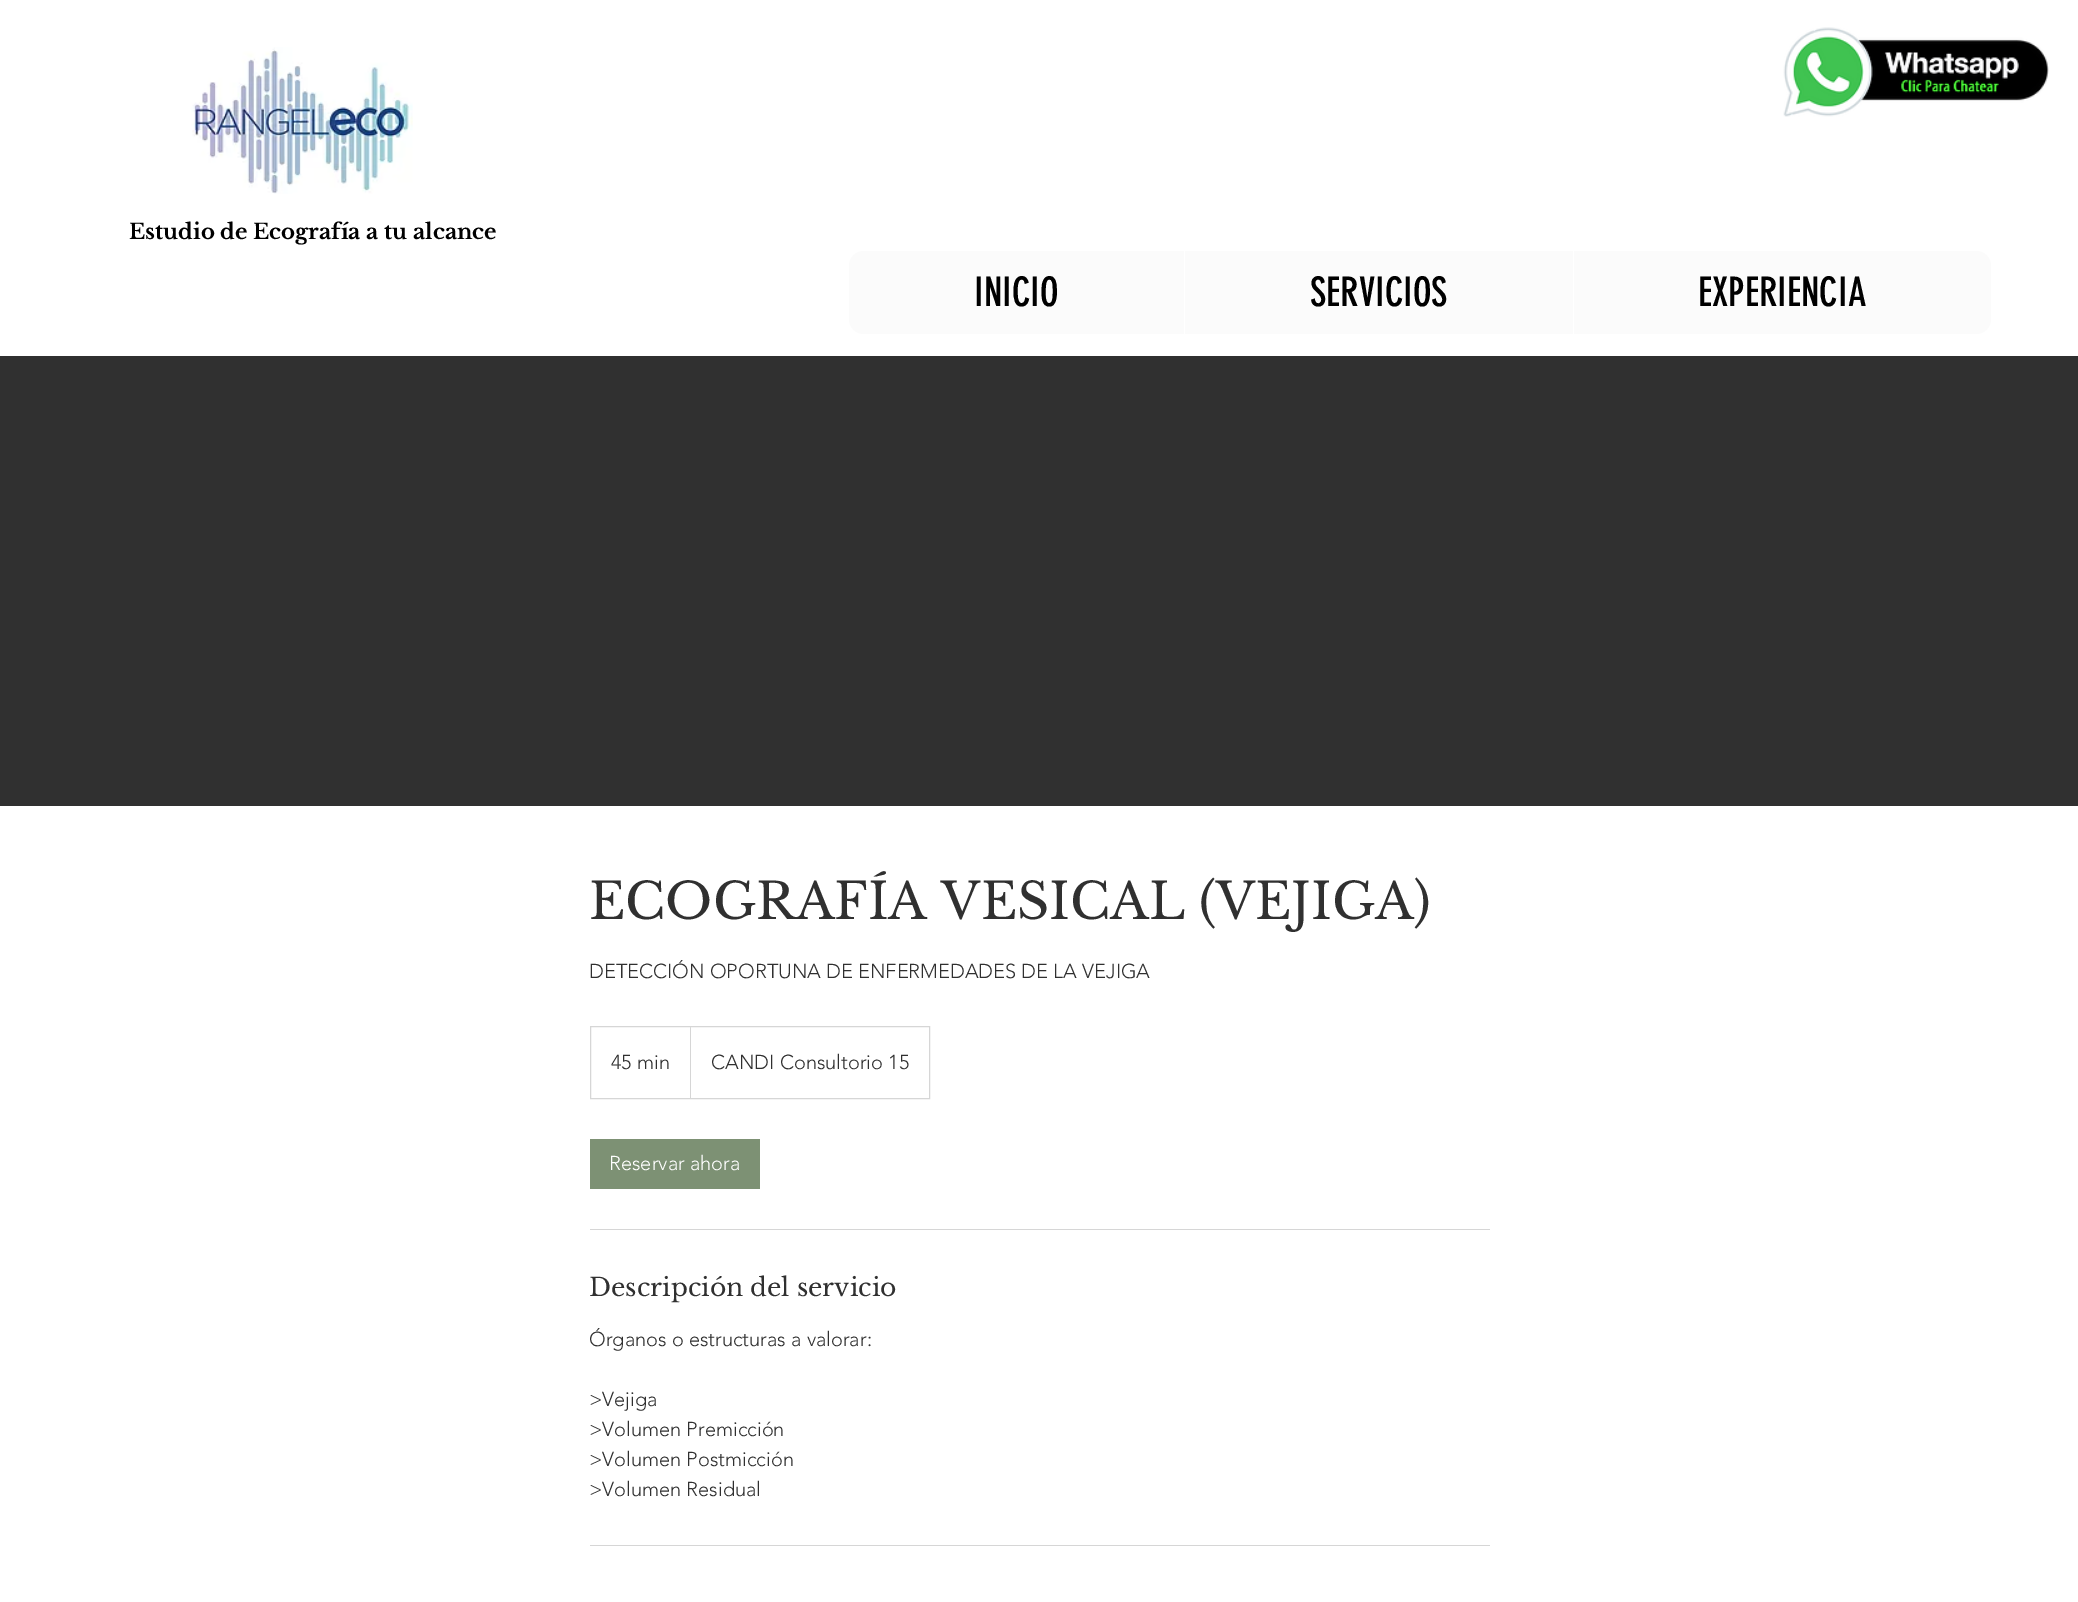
%!PS-Adobe-3.0
%%BoundingBox: 0 0 2078 1602
%%LanguageLevel: 3
%%Pages: 1
%%EndComments
%%BeginProlog
/rrect { 5 dict begin { /r /h /w /y /x } { exch def } forall
  x r add y moveto x w add y 2 copy h add r arct x w add y h add x 1 index r arct
  x y h add x y r arct x y 2 copy exch w add exch r arct closepath end } def
/drawimage { 5 dict begin { /h /w /y /x /name } { exch def } forall
  gsave x y translate w h scale
  w h 8 [w 0 0 h 0 0] name (r) file false 3 colorimage grestore end } def
%%EndProlog
%%BeginSetup
<< /PageSize [2078 1602] >> setpagedevice
%%EndSetup
%%Page: 1 1
0 1602 translate 1 -1 scale
4 setmiterlimit
1 setgray
0 0 2078 1602 rectfill
(images/1.raw) 1783 27 266 90 drawimage
(images/2.raw) 191 47 222 147 drawimage
0.984 setgray
849 251 1142 83 15 rrect fill
1 setgray
1184 251 1 83 rectfill
1573 251 1 83 rectfill
0.188 setgray
0 356 2078 450 rectfill
0.839 setgray
590.5 1026.5 339 72 rectstroke
newpath 690 1098 moveto 690 1026 lineto 691 1028 lineto 691 1098 lineto closepath fill
0.49 0.569 0.455 setrgbcolor
590 1139 170 50 rectfill
0.839 setgray
590 1229 900 1 rectfill
590 1545 900 1 rectfill
/LibreBaskerville-Bold [21.25 0 0 -21.25 0 0] selectfont
0 setgray
129 239 moveto (Estudio de Ecografía a tu alcance) show
/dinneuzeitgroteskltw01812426-Regular [40 0 0 -40 0 0] selectfont
974 306 moveto (INICIO) show
1310 306 moveto (SERVICIOS) show
1698 306 moveto (EXPERIENCIA) show
/LibreBaskerville-Regular [50 0 0 -50 0 0] selectfont
0.188 setgray
589 919 moveto (ECOGRAFÍA VESICAL \(VEJIGA\)) show
/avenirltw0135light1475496-Light [20 0 0 -20 0 0] selectfont
589 978 moveto (DETECCIÓN OPORTUNA DE ENFERMEDADES DE LA VEJIGA) show
611 1069 moveto (45 min) show
711 1069 moveto (CANDI Consultorio 15) show
1 setgray
609 1170 moveto (Reservar ahora) show
/LibreBaskerville-Regular [25 0 0 -25 0 0] selectfont
0.188 setgray
589 1296 moveto (Descripción del servicio) show
/avenirltw0135light1475496-Light [20 0 0 -20 0 0] selectfont
589 1346 moveto (Órganos o estructuras a valorar:) show
589 1406 moveto (>Vejiga) show
589 1436 moveto (>Volumen Premicción) show
589 1466 moveto (>Volumen Postmicción) show
589 1496 moveto (>Volumen Residual) show
showpage
%%EOF
